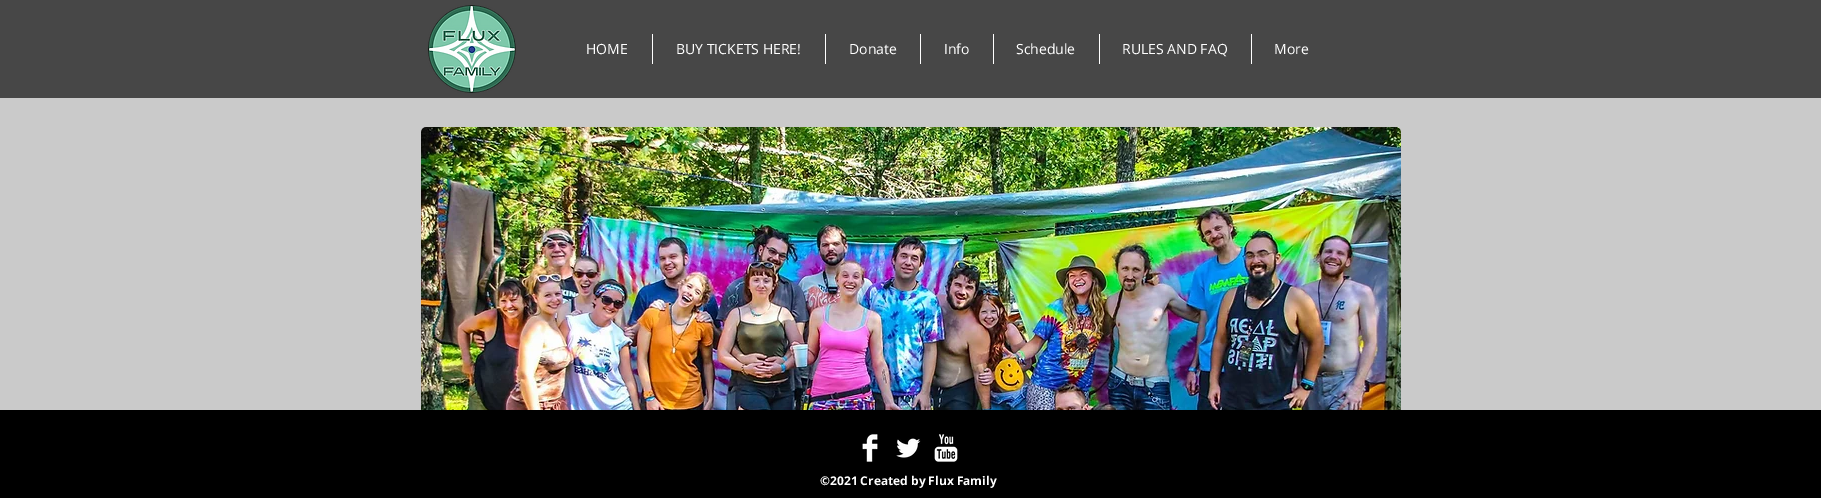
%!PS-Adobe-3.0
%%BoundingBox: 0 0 1821 498
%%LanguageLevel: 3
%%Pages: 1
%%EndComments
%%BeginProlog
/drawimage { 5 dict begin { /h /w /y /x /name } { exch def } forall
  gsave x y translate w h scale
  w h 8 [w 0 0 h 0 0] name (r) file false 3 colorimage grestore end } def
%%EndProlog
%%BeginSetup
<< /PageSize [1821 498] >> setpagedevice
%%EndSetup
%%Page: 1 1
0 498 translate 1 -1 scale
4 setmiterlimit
0.792 setgray
0 0 1821 498 rectfill
0.278 setgray
0 0 1821 98 rectfill
(images/1.raw) 428 5 88 88 drawimage
1 setgray
652 34 1 30 rectfill
825 34 1 30 rectfill
920 34 1 30 rectfill
993 34 1 30 rectfill
1099 34 1 30 rectfill
1251 34 1 30 rectfill
(images/2.raw) 421 127 980 283 drawimage
0 setgray
0 410 1821 88 rectfill
(images/3.raw) 862 434 16 28 drawimage
(images/4.raw) 896 438 25 20 drawimage
(images/5.raw) 934 434 24 28 drawimage
/OpenSans-Regular [14 0 0 -14 0 0] selectfont
1 setgray
586 54 moveto (HOME) show
676 54 moveto (BUY TICKETS HERE!) show
849 54 moveto (Donate) show
944 54 moveto (Info) show
1016 54 moveto (Schedule) show
1122 54 moveto (RULES AND FAQ) show
1274 54 moveto (More) show
/OpenSans-Bold [12 0 0 -12 0 0] selectfont
820 485 moveto (©2021 Created by Flux Family) show
showpage
%%EOF
